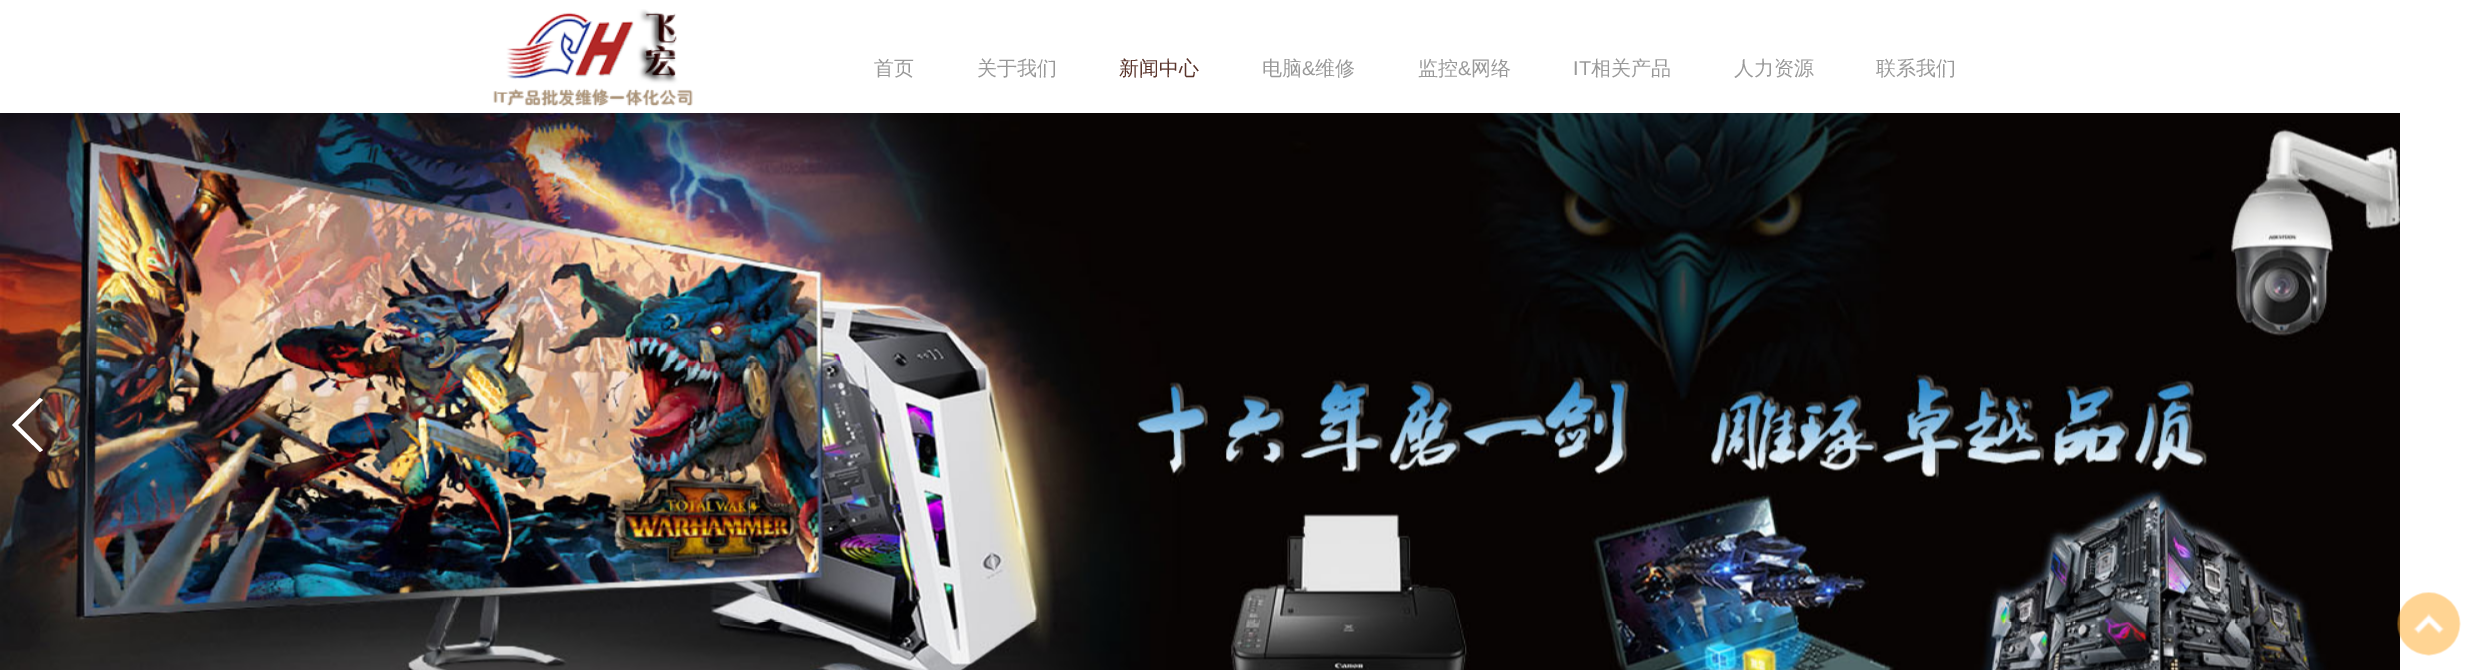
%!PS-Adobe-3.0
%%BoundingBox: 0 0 2475 670
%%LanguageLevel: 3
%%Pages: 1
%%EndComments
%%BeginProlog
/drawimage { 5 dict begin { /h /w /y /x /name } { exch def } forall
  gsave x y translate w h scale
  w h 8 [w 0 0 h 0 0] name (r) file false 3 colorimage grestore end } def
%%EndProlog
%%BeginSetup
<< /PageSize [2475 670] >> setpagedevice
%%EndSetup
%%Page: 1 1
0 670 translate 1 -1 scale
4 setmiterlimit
1 setgray
0 0 2475 670 rectfill
(images/1.raw) 493 9 200 98 drawimage
(images/2.raw) 0 113 2400 557 drawimage
newpath 12 425 moveto 40 398 lineto 43 400 lineto 18 425 lineto 43 450 lineto 40 452 lineto closepath fill
(images/3.raw) 2397 592 64 64 drawimage
/WenQuanYiZenHei-Medium [20 0 0 -20 0 0] selectfont
0.6 setgray
874 75 moveto (首页) show
977 75 moveto (关于我们) show
0.353 0.204 0.169 setrgbcolor
1119 75 moveto (新闻中心) show
0.6 setgray
1262 75 moveto (电脑) show
/LiberationSans-Regular [20 0 0 -20 0 0] selectfont
1302 75 moveto (&) show
/WenQuanYiZenHei-Medium [20 0 0 -20 0 0] selectfont
1315 75 moveto (维修) show
1418 75 moveto (监控) show
/LiberationSans-Regular [20 0 0 -20 0 0] selectfont
1458 75 moveto (&) show
/WenQuanYiZenHei-Medium [20 0 0 -20 0 0] selectfont
1471 75 moveto (网络) show
/LiberationSans-Regular [20 0 0 -20 0 0] selectfont
1573 75 moveto (IT) show
/WenQuanYiZenHei-Medium [20 0 0 -20 0 0] selectfont
1591 75 moveto (相关产品) show
1734 75 moveto (人力资源) show
1876 75 moveto (联系我们) show
showpage
%%EOF
